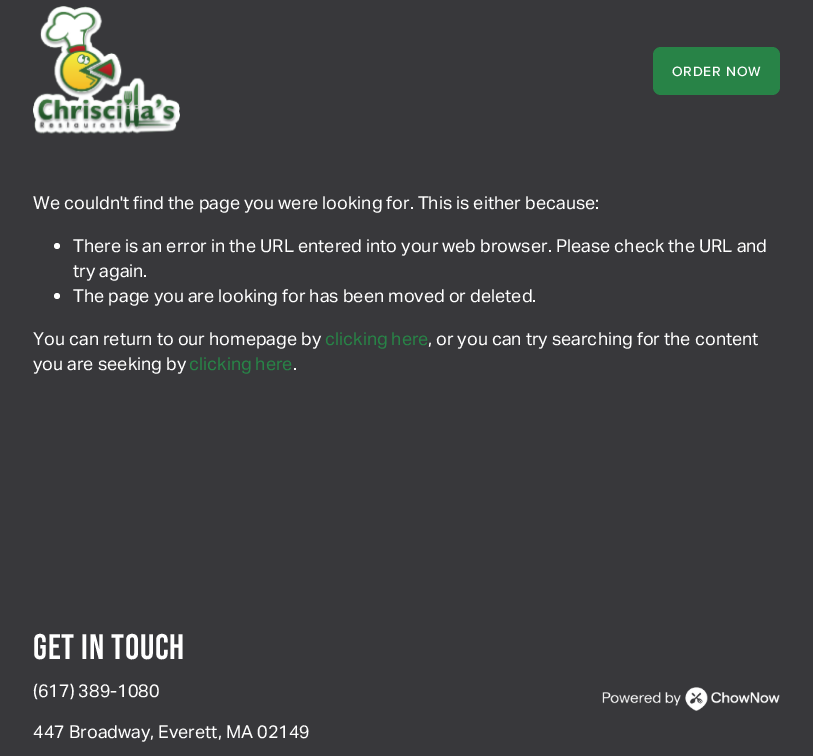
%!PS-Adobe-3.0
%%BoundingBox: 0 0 813 756
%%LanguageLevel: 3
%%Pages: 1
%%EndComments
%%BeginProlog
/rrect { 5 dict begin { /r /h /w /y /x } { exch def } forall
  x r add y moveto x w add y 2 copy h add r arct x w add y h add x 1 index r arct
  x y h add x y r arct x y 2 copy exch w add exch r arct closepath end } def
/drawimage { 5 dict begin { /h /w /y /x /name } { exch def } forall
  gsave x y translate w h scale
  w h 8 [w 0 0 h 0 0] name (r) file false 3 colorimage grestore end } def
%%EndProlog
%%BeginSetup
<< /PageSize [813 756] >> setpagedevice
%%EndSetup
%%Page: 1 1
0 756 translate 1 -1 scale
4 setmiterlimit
0.22 0.22 0.231 setrgbcolor
0 0 813 756 rectfill
(images/1.raw) 33 6 147 128 drawimage
0.157 0.514 0.278 setrgbcolor
653 47 127 48 8 rrect fill
1 setgray
newpath 57 246 3 0 360 arc closepath fill
newpath 57 296 3 0 360 arc closepath fill
(images/2.raw) 602 687 178 24 drawimage
/ProximaNova-Medium [14 0 0 -14 0 0] selectfont
672 76 moveto 0.75 0 (ORDER NOW) ashow
/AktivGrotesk-Regular [17.95 0 0 -17.95 0 0] selectfont
33 209 moveto (We couldn't find the page you were looking for. This is either because:) show
73 252 moveto (There is an error in the URL entered into your web browser. Please check the URL and) show
73 277 moveto (try again.) show
73 302 moveto (The page you are looking for has been moved or deleted.) show
33 345 moveto (You can return to our homepage by) show
0.157 0.514 0.278 setrgbcolor
325 345 moveto (clicking here) show
1 setgray
428 345 moveto (, or you can try searching for the content) show
33 370 moveto (you are seeking by) show
0.157 0.514 0.278 setrgbcolor
189 370 moveto (clicking here) show
1 setgray
293 370 moveto (.) show
/BebasNeue-Regular [35.5 0 0 -35.5 0 0] selectfont
33 659 moveto 0.75 0 (Get in Touch) ashow
/AktivGrotesk-Regular [17.95 0 0 -17.95 0 0] selectfont
33 697 moveto (\(617\) 389-1080) show
33 738 moveto (447 Broadway, Everett, MA 02149) show
showpage
%%EOF
